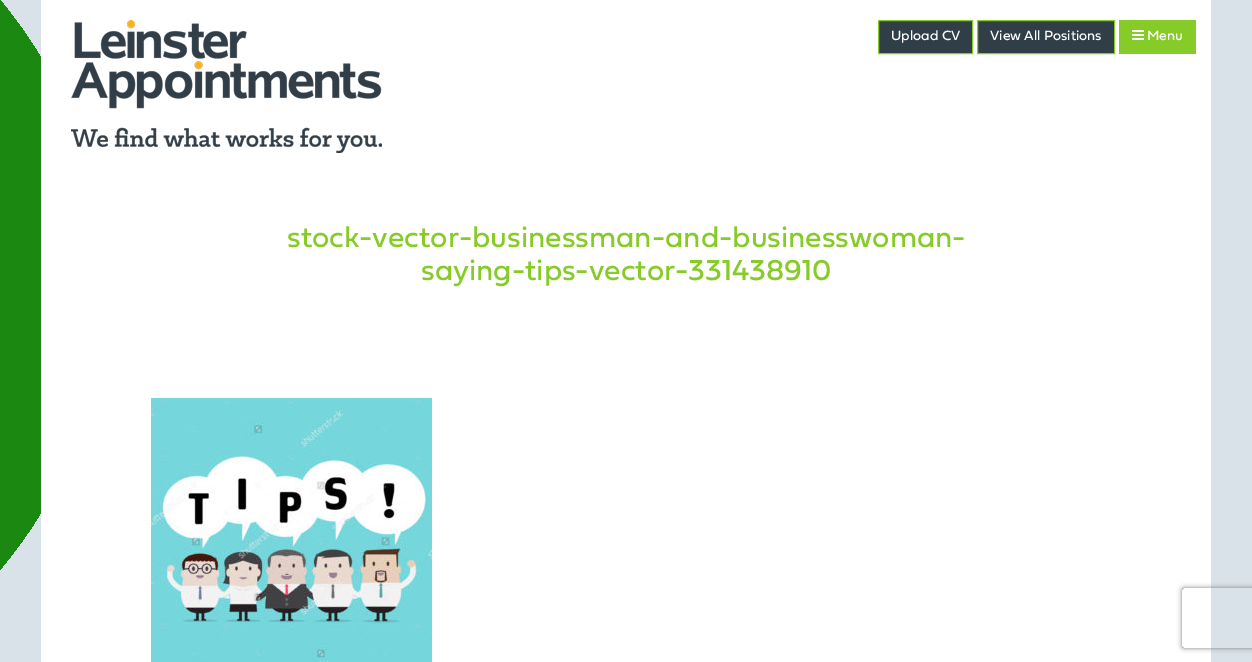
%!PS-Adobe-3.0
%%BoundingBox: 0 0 1252 662
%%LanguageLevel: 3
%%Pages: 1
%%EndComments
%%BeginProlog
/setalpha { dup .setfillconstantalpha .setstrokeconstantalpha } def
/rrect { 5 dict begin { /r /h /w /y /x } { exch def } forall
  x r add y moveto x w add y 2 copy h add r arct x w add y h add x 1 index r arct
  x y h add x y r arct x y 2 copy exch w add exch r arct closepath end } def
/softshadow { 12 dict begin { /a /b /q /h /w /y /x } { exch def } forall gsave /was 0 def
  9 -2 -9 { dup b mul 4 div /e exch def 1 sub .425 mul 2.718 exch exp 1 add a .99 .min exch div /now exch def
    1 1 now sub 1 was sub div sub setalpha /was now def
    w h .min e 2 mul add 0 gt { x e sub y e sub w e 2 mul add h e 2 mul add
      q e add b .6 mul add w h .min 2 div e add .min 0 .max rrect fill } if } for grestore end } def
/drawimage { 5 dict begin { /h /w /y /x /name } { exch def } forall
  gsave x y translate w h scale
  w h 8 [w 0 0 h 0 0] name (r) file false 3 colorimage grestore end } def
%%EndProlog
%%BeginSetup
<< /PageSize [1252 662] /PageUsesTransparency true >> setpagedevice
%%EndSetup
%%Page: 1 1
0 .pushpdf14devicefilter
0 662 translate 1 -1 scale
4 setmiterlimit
0.851 0.886 0.91 setrgbcolor
0 0 1252 662 rectfill
(images/1.raw) 0 0 41 570 drawimage
1 setgray
41 0 1170 662 rectfill
(images/2.raw) 71 20 311 133 drawimage
0.188 0.243 0.282 setrgbcolor
newpath 878.5 20.5 moveto 972.5 20.5 lineto 972.5 53.5 lineto 878.5 53.5 lineto closepath gsave fill grestore
0.529 0.796 0.157 setrgbcolor
stroke
0.188 0.243 0.282 setrgbcolor
newpath 977.5 20.5 moveto 1114.5 20.5 lineto 1114.5 53.5 lineto 977.5 53.5 lineto closepath gsave fill grestore
0.529 0.796 0.157 setrgbcolor
stroke
1119 20 77 34 rectfill
(images/3.raw) 1132 30 12 10 drawimage
(images/4.raw) 151 398 281 264 drawimage
gsave
newpath 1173 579 moveto 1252 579 lineto 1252 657 lineto 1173 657 lineto closepath 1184 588 moveto 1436 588 lineto 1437 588 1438 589 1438 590 curveto 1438 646 lineto 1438 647 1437 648 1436 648 curveto 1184 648 lineto 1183 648 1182 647 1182 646 curveto 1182 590 lineto 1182 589 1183 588 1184 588 curveto closepath eoclip newpath
0.502 setgray
1182 588 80 60 2 2.5 1 softshadow
grestore
/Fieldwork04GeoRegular-Regular [14 0 0 -14 0 0] selectfont
1 setgray
891 40 moveto (Upload CV) show
990 40 moveto (View All Positions) show
1147 40 moveto (Menu) show
/Fieldwork04GeoRegular-Regular [30 0 0 -30 0 0] selectfont
0.529 0.796 0.157 setrgbcolor
287 247 moveto (stock-vector-businessman-and-businesswoman-) show
421 280 moveto (saying-tips-vector-331438910) show
.poppdf14devicefilter showpage
%%EOF
